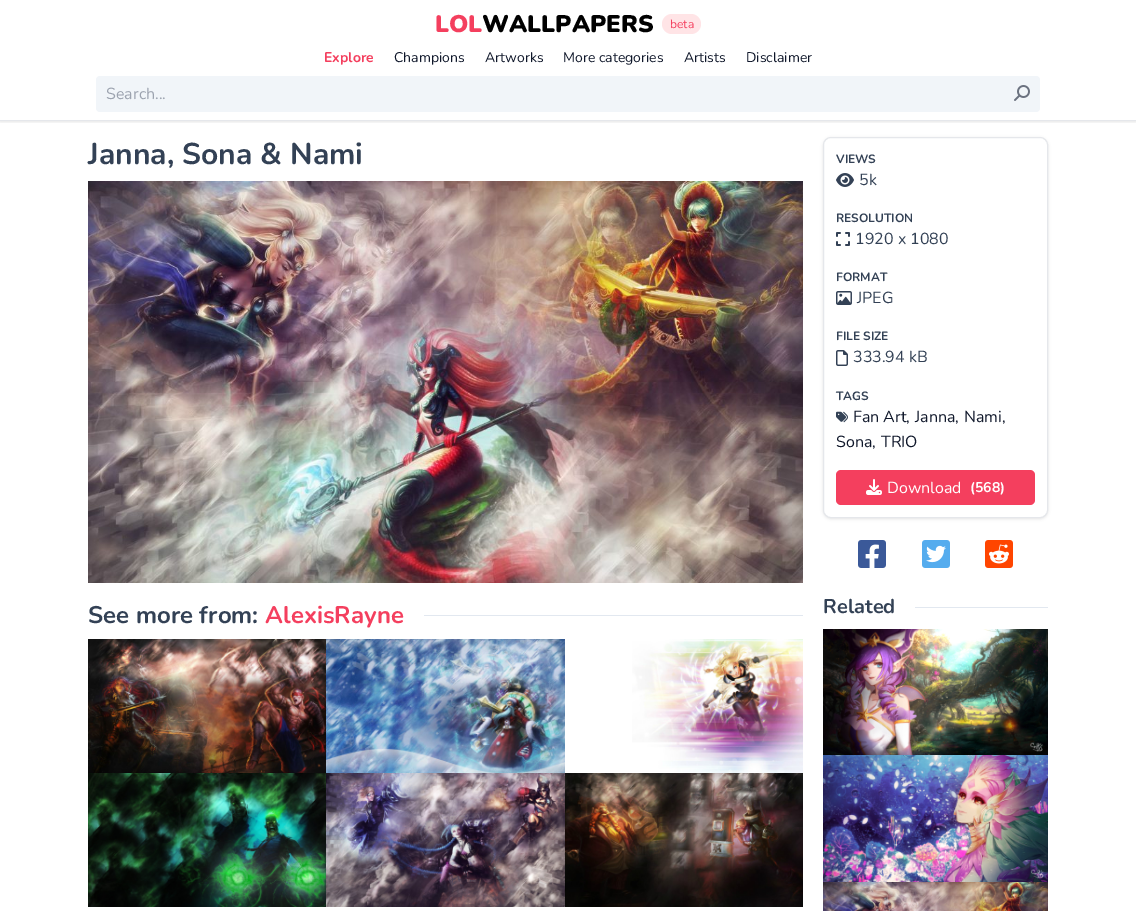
%!PS-Adobe-3.0
%%BoundingBox: 0 0 1136 911
%%LanguageLevel: 3
%%Pages: 1
%%EndComments
%%BeginProlog
/setalpha { dup .setfillconstantalpha .setstrokeconstantalpha } def
/rrect { 5 dict begin { /r /h /w /y /x } { exch def } forall
  x r add y moveto x w add y 2 copy h add r arct x w add y h add x 1 index r arct
  x y h add x y r arct x y 2 copy exch w add exch r arct closepath end } def
/softshadow { 12 dict begin { /a /b /q /h /w /y /x } { exch def } forall gsave /was 0 def
  9 -2 -9 { dup b mul 4 div /e exch def 1 sub .425 mul 2.718 exch exp 1 add a .99 .min exch div /now exch def
    1 1 now sub 1 was sub div sub setalpha /was now def
    w h .min e 2 mul add 0 gt { x e sub y e sub w e 2 mul add h e 2 mul add
      q e add b .6 mul add w h .min 2 div e add .min 0 .max rrect fill } if } for grestore end } def
/drawimage { 5 dict begin { /h /w /y /x /name } { exch def } forall
  gsave x y translate w h scale
  w h 8 [w 0 0 h 0 0] name (r) file false 3 colorimage grestore end } def
%%EndProlog
%%BeginSetup
<< /PageSize [1136 911] /PageUsesTransparency true >> setpagedevice
%%EndSetup
%%Page: 1 1
0 .pushpdf14devicefilter
0 911 translate 1 -1 scale
4 setmiterlimit
1 setgray
0 0 1136 911 rectfill
gsave
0 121 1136 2 rectclip
0 setgray
0 1 1136 121 0 1.5 0.1 softshadow
grestore
0.898 0.906 0.922 setrgbcolor
0 120 1136 1 rectfill
1 0.894 0.902 setrgbcolor
662 14 39 20 10 rrect fill
0.945 0.961 0.976 setrgbcolor
96 76 944 36 4 rrect fill
(images/1.raw) 1014 85 16 16 drawimage
(images/2.raw) 88 181 715 402 drawimage
0.886 0.91 0.941 setrgbcolor
424 615 379 1 rectfill
(images/3.raw) 88 639 238 134 drawimage
(images/4.raw) 326 639 239 134 drawimage
(images/5.raw) 632 639 171 134 drawimage
(images/6.raw) 88 773 238 134 drawimage
(images/7.raw) 326 773 239 134 drawimage
(images/8.raw) 565 773 238 134 drawimage
gsave
newpath 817 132 moveto 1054 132 lineto 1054 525 lineto 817 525 lineto closepath 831 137 moveto 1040 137 lineto 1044.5 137 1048 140.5 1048 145 curveto 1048 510 lineto 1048 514.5 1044.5 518 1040 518 curveto 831 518 lineto 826.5 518 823 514.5 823 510 curveto 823 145 lineto 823 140.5 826.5 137 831 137 curveto closepath eoclip newpath
0 setgray
823 138 225 381 8 1.5 0.1 softshadow
grestore
0.898 0.906 0.922 setrgbcolor
823.5 137.5 224 380 7.5 rrect stroke
(images/9.raw) 836 173 18 14 drawimage
(images/10.raw) 836 232 14 14 drawimage
(images/11.raw) 836 291 16 14 drawimage
(images/12.raw) 836 350 12 16 drawimage
(images/13.raw) 836 411 12 12 drawimage
0.957 0.247 0.369 setrgbcolor
836 470 199 35 5 rrect fill
(images/14.raw) 866 479 16 16 drawimage
(images/15.raw) 858 540 28 28 drawimage
(images/16.raw) 922 540 28 28 drawimage
(images/17.raw) 985 540 28 28 drawimage
0.886 0.91 0.941 setrgbcolor
915 607 133 1 rectfill
(images/18.raw) 823 629 225 126 drawimage
(images/19.raw) 823 755 225 127 drawimage
(images/20.raw) 823 882 225 29 drawimage
/Nunito-Black [24 0 0 -24 0 0] selectfont
0.957 0.247 0.369 setrgbcolor
435 32 moveto (LOL) show
0 setgray
482 32 moveto (WALLPAPERS) show
/Nunito-Regular [12 0 0 -12 0 0] selectfont
0.957 0.247 0.369 setrgbcolor
670 28 moveto (beta) show
/Nunito-Bold [14 0 0 -14 0 0] selectfont
324 62 moveto (Explore) show
/Nunito-Regular [14 0 0 -14 0 0] selectfont
0.059 0.09 0.165 setrgbcolor
394 62 moveto (Champions) show
485 62 moveto (Artworks) show
563 62 moveto (More categories) show
684 62 moveto (Artists) show
746 62 moveto (Disclaimer) show
/Nunito-Regular [16 0 0 -16 0 0] selectfont
0.612 0.639 0.686 setrgbcolor
106 99 moveto (Search...) show
/Nunito-Bold [30 0 0 -30 0 0] selectfont
0.2 0.255 0.333 setrgbcolor
88 164 moveto (Janna, Sona & Nami) show
/Nunito-Bold [24 0 0 -24 0 0] selectfont
88 623 moveto (See more from:) show
0.957 0.247 0.369 setrgbcolor
265 623 moveto (AlexisRayne) show
/Nunito-Bold [12 0 0 -12 0 0] selectfont
0.2 0.255 0.333 setrgbcolor
836 163 moveto (VIEWS) show
/Nunito-Regular [16 0 0 -16 0 0] selectfont
859 185 moveto (5k) show
/Nunito-Bold [12 0 0 -12 0 0] selectfont
836 222 moveto (RESOLUTION) show
/Nunito-Regular [16 0 0 -16 0 0] selectfont
855 244 moveto (1920 x 1080) show
/Nunito-Bold [12 0 0 -12 0 0] selectfont
836 281 moveto (FORMAT) show
/Nunito-Regular [16 0 0 -16 0 0] selectfont
857 303 moveto (JPEG) show
/Nunito-Bold [12 0 0 -12 0 0] selectfont
836 340 moveto (FILE SIZE) show
/Nunito-Regular [16 0 0 -16 0 0] selectfont
853 362 moveto (333.94 kB) show
/Nunito-Bold [12 0 0 -12 0 0] selectfont
836 400 moveto (TAGS) show
/Nunito-Regular [16 0 0 -16 0 0] selectfont
0.059 0.09 0.165 setrgbcolor
853 422 moveto (Fan Art,) show
915 422 moveto (Janna,) show
964 422 moveto (Nami,) show
836 447 moveto (Sona,) show
881 447 moveto (TRIO) show
1 setgray
887 493 moveto (Download) show
/Nunito-Bold [14 0 0 -14 0 0] selectfont
970 492 moveto (\(568\)) show
/Nunito-Bold [20 0 0 -20 0 0] selectfont
0.2 0.255 0.333 setrgbcolor
823 613 moveto (Related) show
.poppdf14devicefilter showpage
%%EOF
